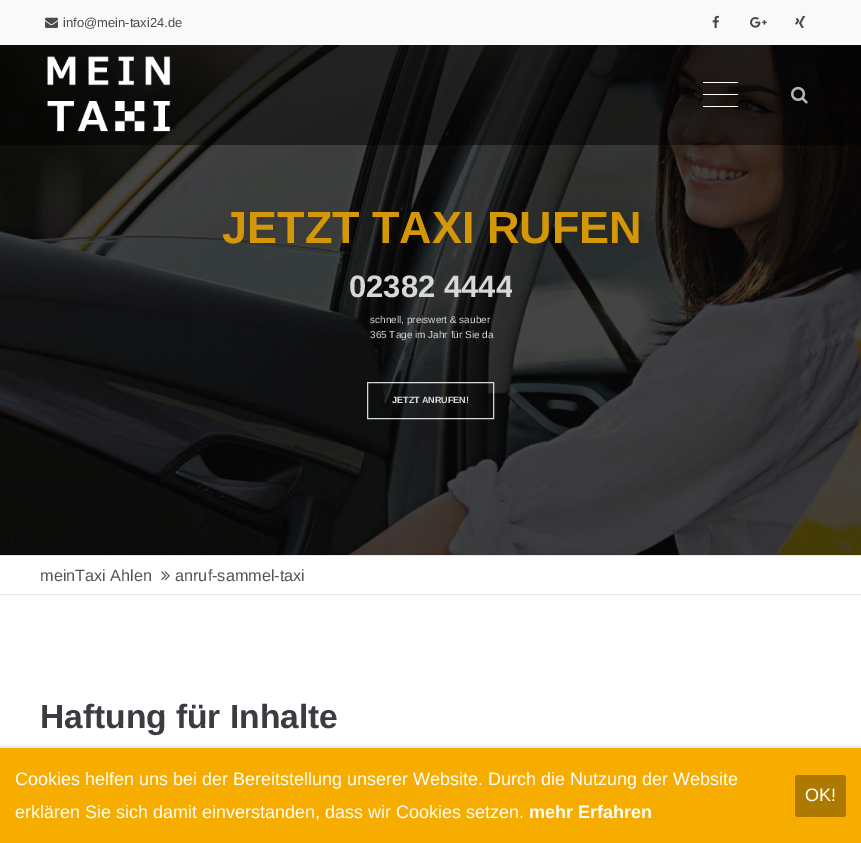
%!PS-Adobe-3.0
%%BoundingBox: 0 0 861 843
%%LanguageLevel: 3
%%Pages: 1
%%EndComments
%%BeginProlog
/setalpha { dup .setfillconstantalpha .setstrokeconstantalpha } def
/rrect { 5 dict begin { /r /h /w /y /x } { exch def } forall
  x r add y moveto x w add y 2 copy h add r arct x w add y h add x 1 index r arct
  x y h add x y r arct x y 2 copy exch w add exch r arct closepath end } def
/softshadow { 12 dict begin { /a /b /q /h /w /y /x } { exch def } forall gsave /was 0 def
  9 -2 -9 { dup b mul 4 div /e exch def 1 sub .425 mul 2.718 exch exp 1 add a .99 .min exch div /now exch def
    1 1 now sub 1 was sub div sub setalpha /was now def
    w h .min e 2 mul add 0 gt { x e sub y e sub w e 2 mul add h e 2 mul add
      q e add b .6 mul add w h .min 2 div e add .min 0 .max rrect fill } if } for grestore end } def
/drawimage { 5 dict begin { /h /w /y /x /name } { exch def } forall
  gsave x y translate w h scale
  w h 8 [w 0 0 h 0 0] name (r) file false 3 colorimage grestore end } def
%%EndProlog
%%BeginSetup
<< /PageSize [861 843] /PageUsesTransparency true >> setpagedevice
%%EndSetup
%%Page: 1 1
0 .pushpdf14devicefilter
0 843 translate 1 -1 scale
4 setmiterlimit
1 setgray
0 0 861 843 rectfill
0.976 setgray
0 0 861 45 rectfill
(images/1.raw) 45 17 13 11 drawimage
(images/2.raw) 712 15 7 13 drawimage
(images/3.raw) 750 17 17 11 drawimage
(images/4.raw) 795 15 11 13 drawimage
(images/7.raw) 0 45 861 510 drawimage
0.5 setalpha
0 setgray
0 45 861 100 rectfill
1 setalpha
(images/5.raw) 47 56 124 76 drawimage
1 setgray
703 94 35 1 rectfill
703 82 35 1 rectfill
703 106 35 1 rectfill
(images/6.raw) 791 86 17 18 drawimage
0.83 setalpha
367.5 382.5 126 36 rectstroke
1 setalpha
0.902 setgray
0 555 861 1 rectfill
0 594 861 1 rectfill
(images/8.raw) 161 571 9 10 drawimage
0 setgray
-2 746 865 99 0 1 0.1 softshadow
0.969 0.678 0 setrgbcolor
0 748 861 95 rectfill
0.678 0.475 0 setrgbcolor
795 775 51 42 3 rrect fill
/LiberationSans-Regular [13 0 0 -13 0 0] selectfont
0.294 setgray
63 27 moveto (info@mein-taxi24.de) show
/LiberationSans-Bold [45 0 0 -45 0 0] selectfont
0.831 0.592 0.027 setrgbcolor
222 243 moveto (JETZT TAXI RUFEN) show
gsave
349 264 163 46 rectclip
/LiberationSans-Bold [31 0 0 -31 0 0] selectfont
0.847 setgray
349 297 moveto (02382 4444) show
grestore
/LiberationSans-Regular [10 0 0 -10 0 0] selectfont
0.847 setgray
370 323 moveto (schnell, preiswert & sauber) show
370 338 moveto (365 Tage im Jahr für Sie da) show
/LiberationSans-Bold [9 0 0 -9 0 0] selectfont
392 403 moveto (JETZT ANRUFEN!) show
/LiberationSans-Regular [16.25 0 0 -16.25 0 0] selectfont
0.333 setgray
40 581 moveto (meinTaxi Ahlen) show
175 581 moveto (anruf-sammel-taxi) show
/LiberationSans-Bold [33.5 0 0 -33.5 0 0] selectfont
0.231 0.235 0.259 setrgbcolor
40 728 moveto (Haftung für Inhalte) show
/LiberationSans-Regular [18 0 0 -18 0 0] selectfont
1 setgray
15 785 moveto (Cookies helfen uns bei der Bereitstellung unserer Website. Durch die Nutzung der Website) show
805 801 moveto (OK!) show
15 818 moveto (erklären Sie sich damit einverstanden, dass wir Cookies setzen.) show
/LiberationSans-Bold [18 0 0 -18 0 0] selectfont
529 818 moveto (mehr Erfahren) show
.poppdf14devicefilter showpage
%%EOF
